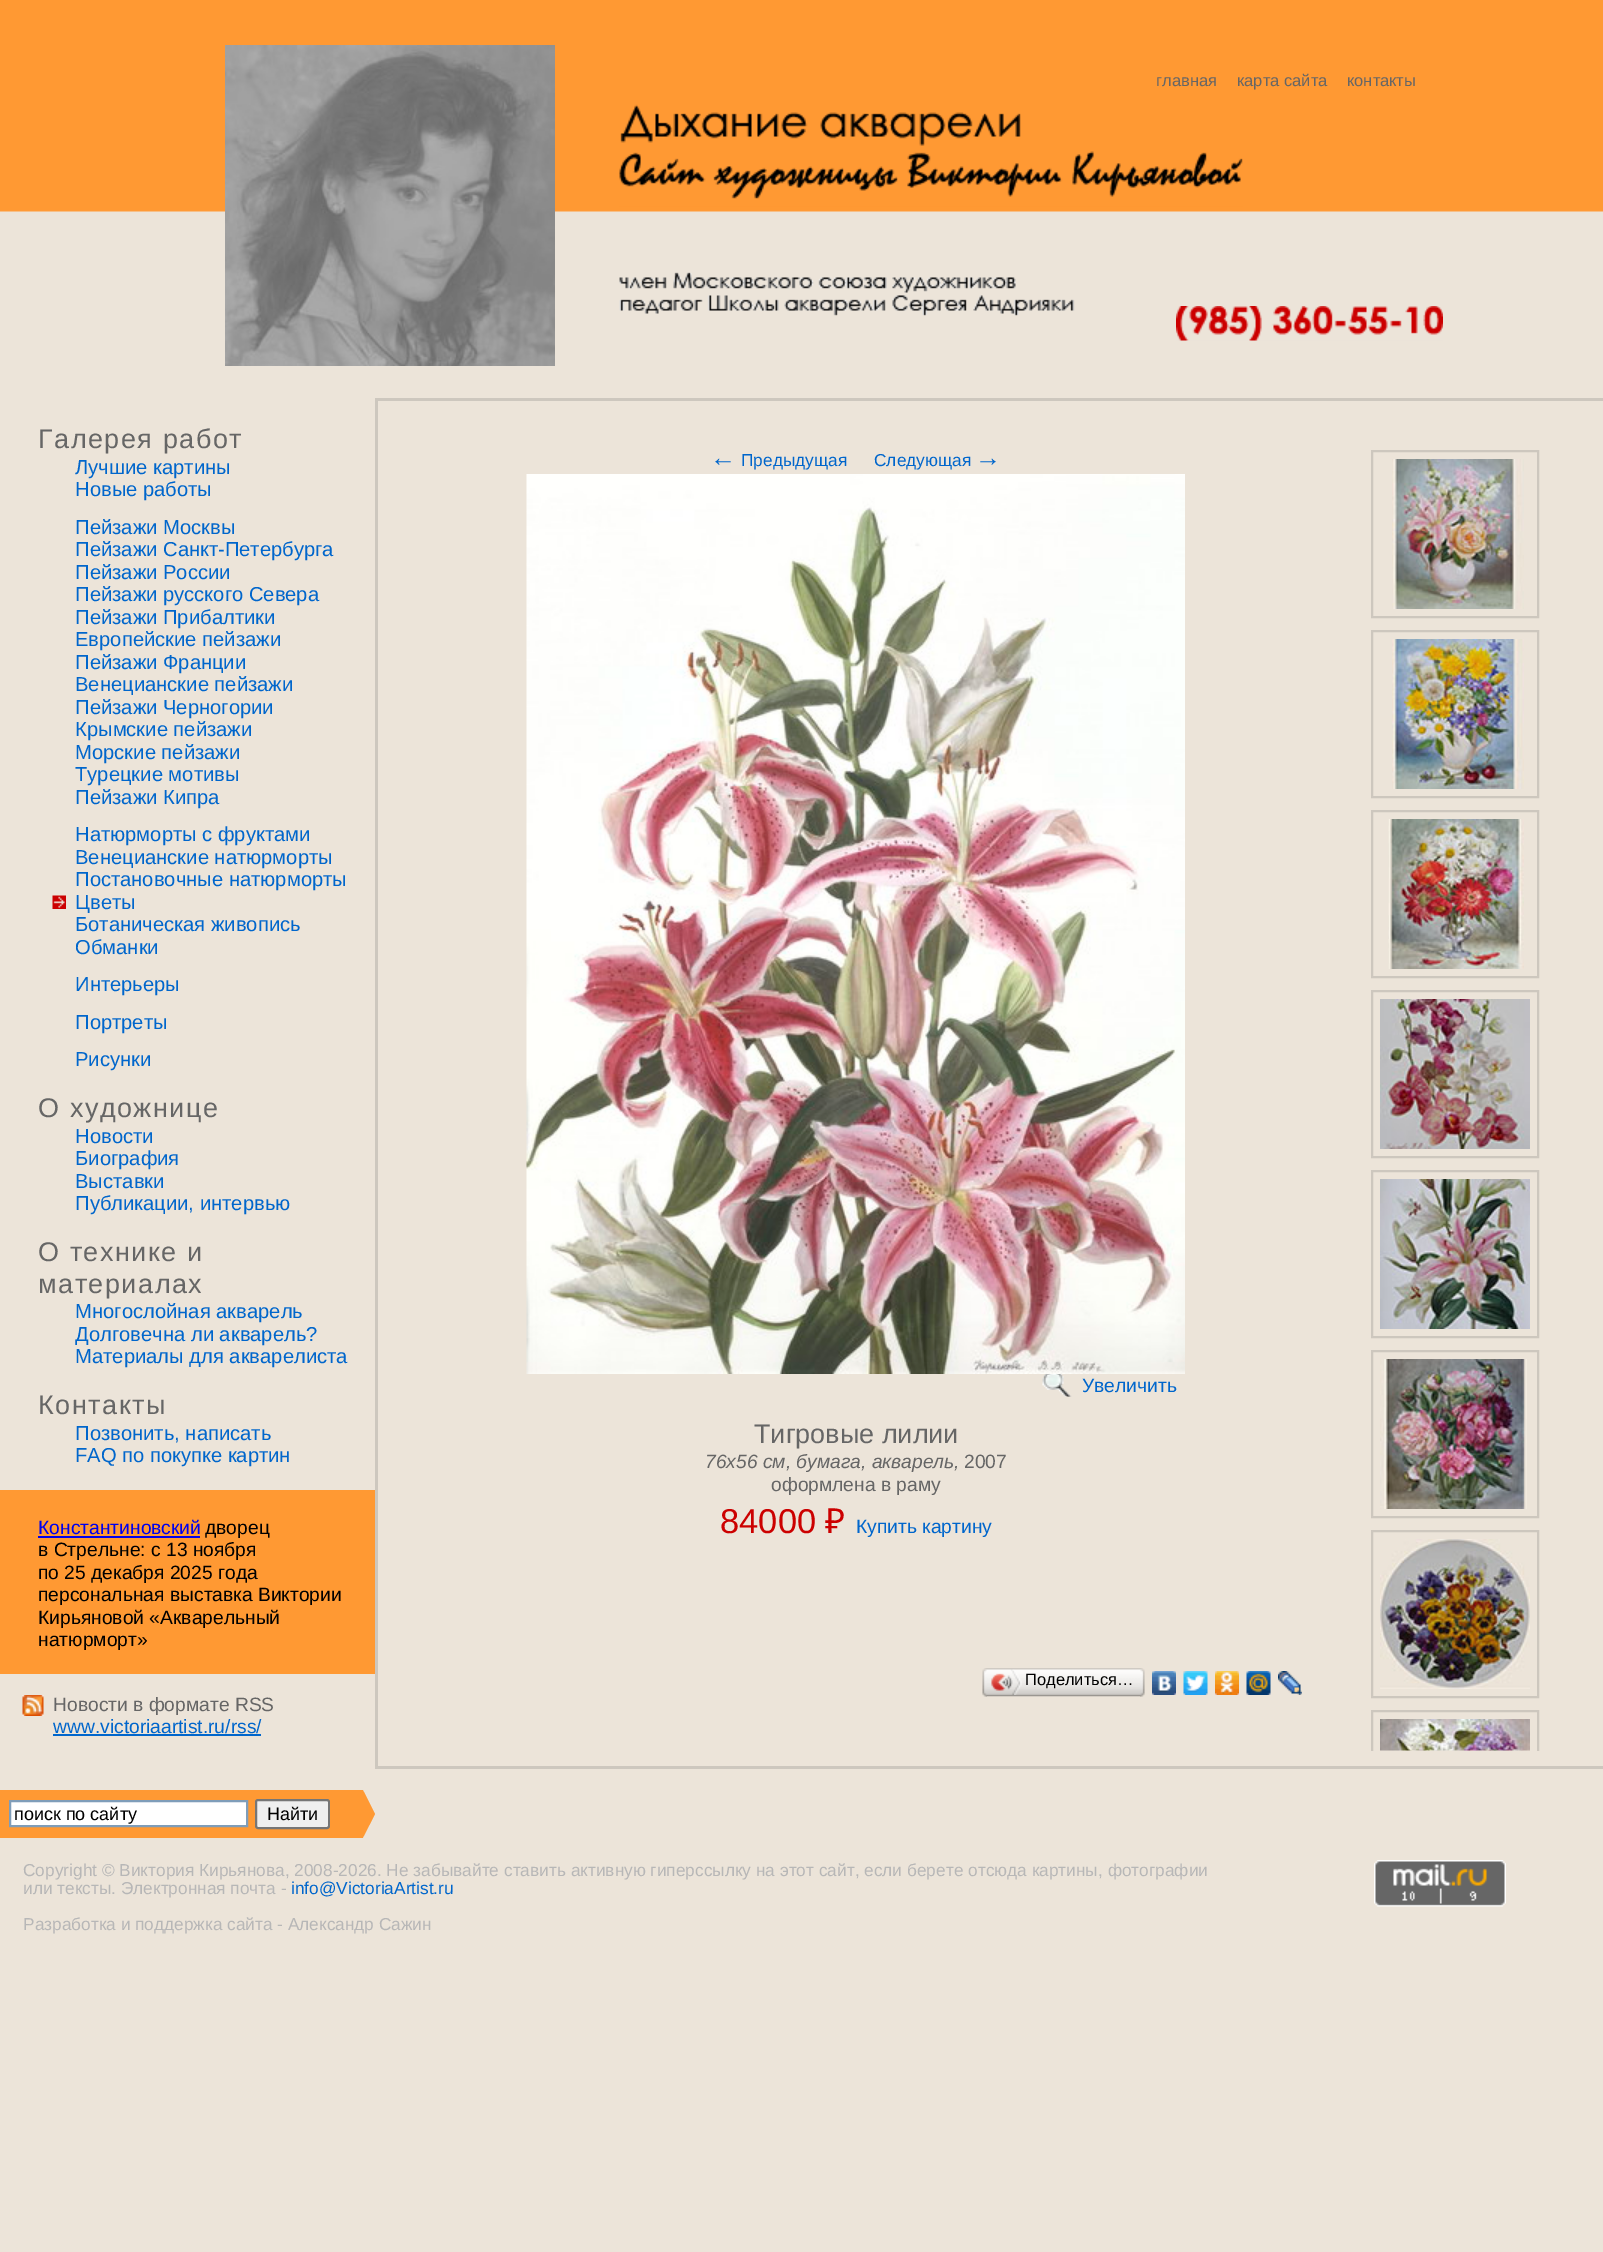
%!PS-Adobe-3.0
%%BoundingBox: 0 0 1603 2252
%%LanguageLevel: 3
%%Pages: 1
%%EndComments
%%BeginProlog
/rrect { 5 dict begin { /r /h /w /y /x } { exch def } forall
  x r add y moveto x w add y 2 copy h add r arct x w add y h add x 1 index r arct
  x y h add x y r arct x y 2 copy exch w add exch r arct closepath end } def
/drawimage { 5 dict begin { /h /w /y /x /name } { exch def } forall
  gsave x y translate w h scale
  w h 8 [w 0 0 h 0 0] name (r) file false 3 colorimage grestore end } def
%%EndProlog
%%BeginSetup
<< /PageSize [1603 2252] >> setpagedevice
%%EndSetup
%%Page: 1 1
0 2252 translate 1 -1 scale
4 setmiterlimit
0.925 0.894 0.851 setrgbcolor
0 0 1603 2252 rectfill
(images/1.raw) 0 0 1603 212 drawimage
(images/2.raw) 225 45 330 321 drawimage
(images/3.raw) 619 104 624 212 drawimage
(images/4.raw) 1176 306 267 35 drawimage
(images/5.raw) 52 895 14 14 drawimage
1 0.6 0.2 setrgbcolor
0 1490 375 184 rectfill
0 0 0.933 setrgbcolor
38 1536 162 2 rectfill
(images/6.raw) 22 1695 22 21 drawimage
0 0.4 0.8 setrgbcolor
53 1734 208 2 rectfill
1 0.6 0.2 setrgbcolor
0 1790 330 48 rectfill
1 setgray
newpath 10 1801 moveto 247 1801 lineto 247 1826 lineto 10 1826 lineto closepath gsave fill grestore
0.498 0.616 0.725 setrgbcolor
2 setlinewidth
stroke
0.937 setgray
256 1800 73 28 2 rrect gsave fill grestore
0.463 setgray
stroke
gsave
330 1790 45 48 rectclip
1 0.6 0.2 setrgbcolor
newpath 330 1902 moveto 330 1725 lineto 375 1814 lineto closepath fill
grestore
0.804 0.78 0.745 setrgbcolor
375 398 1228 3 rectfill
375 1766 1228 3 rectfill
375 398 3 1371 rectfill
(images/7.raw) 526 474 659 900 drawimage
(images/8.raw) 1042 1374 30 23 drawimage
1372 451 166 166 rectstroke
(images/9.raw) 1392 459 132 150 drawimage
1372 631 166 166 rectstroke
(images/10.raw) 1392 639 132 150 drawimage
1372 811 166 166 rectstroke
(images/11.raw) 1388 819 136 150 drawimage
1372 991 166 166 rectstroke
(images/12.raw) 1380 999 150 150 drawimage
1372 1171 166 166 rectstroke
(images/13.raw) 1380 1179 150 150 drawimage
1372 1351 166 166 rectstroke
(images/14.raw) 1380 1359 147 150 drawimage
1372 1531 166 166 rectstroke
(images/15.raw) 1380 1539 150 150 drawimage
(images/26.raw) 1374 1860 132 47 drawimage
gsave
1311 423 270 1328 rectclip
1372 1711 166 166 rectstroke
grestore
(images/16.raw) 1380 1719 150 32 drawimage
(images/17.raw) 987 1668 153 29 drawimage
(images/18.raw) 982 1668 5 29 drawimage
(images/19.raw) 991 1669 31 26 drawimage
(images/20.raw) 1140 1668 5 29 drawimage
(images/21.raw) 1152 1671 24 24 drawimage
(images/22.raw) 1183 1671 25 24 drawimage
(images/23.raw) 1215 1671 24 24 drawimage
(images/24.raw) 1246 1671 25 24 drawimage
(images/25.raw) 1278 1671 24 24 drawimage
/LiberationSans-Regular [16.5 0 0 -16.5 0 0] selectfont
0.4 setgray
1156 86 moveto (главная) show
1237 86 moveto (карта сайта) show
1347 86 moveto (контакты) show
/LiberationSans-Regular [27 0 0 -27 0 0] selectfont
38 448 moveto 1.5 0 (Галерея работ) ashow
/LiberationSans-Regular [20.2 0 0 -20.2 0 0] selectfont
0 0.4 0.8 setrgbcolor
75 474 moveto (Лучшие картины) show
75 496 moveto (Новые работы) show
75 534 moveto (Пейзажи Москвы) show
75 556 moveto (Пейзажи Санкт-Петербурга) show
75 579 moveto (Пейзажи России) show
75 601 moveto (Пейзажи русского Севера) show
75 624 moveto (Пейзажи Прибалтики) show
75 646 moveto (Европейские пейзажи) show
75 669 moveto (Пейзажи Франции) show
75 691 moveto (Венецианские пейзажи) show
75 714 moveto (Пейзажи Черногории) show
75 736 moveto (Крымские пейзажи) show
75 759 moveto (Морские пейзажи) show
75 781 moveto (Турецкие мотивы) show
75 804 moveto (Пейзажи Кипра) show
75 841 moveto (Натюрморты с фруктами) show
75 864 moveto (Венецианские натюрморты) show
75 886 moveto (Постановочные натюрморты) show
75 909 moveto (Цветы) show
75 931 moveto (Ботаническая живопись) show
75 954 moveto (Обманки) show
75 991 moveto (Интерьеры) show
75 1029 moveto (Портреты) show
75 1066 moveto (Рисунки) show
/LiberationSans-Regular [27 0 0 -27 0 0] selectfont
0.4 setgray
38 1117 moveto 1.5 0 (О художнице) ashow
/LiberationSans-Regular [20.2 0 0 -20.2 0 0] selectfont
0 0.4 0.8 setrgbcolor
75 1143 moveto (Новости) show
75 1165 moveto (Биография) show
75 1188 moveto (Выставки) show
75 1210 moveto (Публикации, интервью) show
/LiberationSans-Regular [27 0 0 -27 0 0] selectfont
0.4 setgray
38 1261 moveto 1.5 0 (О технике и) ashow
38 1293 moveto 1.5 0 (материалах) ashow
/LiberationSans-Regular [20.2 0 0 -20.2 0 0] selectfont
0 0.4 0.8 setrgbcolor
75 1318 moveto (Многослойная акварель) show
75 1341 moveto (Долговечна ли акварель?) show
75 1363 moveto (Материалы для акварелиста) show
/LiberationSans-Regular [27 0 0 -27 0 0] selectfont
0.4 setgray
38 1414 moveto 1.5 0 (Контакты) ashow
/LiberationSans-Regular [20.2 0 0 -20.2 0 0] selectfont
0 0.4 0.8 setrgbcolor
75 1440 moveto (Позвонить, написать) show
75 1462 moveto (FAQ по покупке картин) show
/LiberationSans-Regular [19.25 0 0 -19.25 0 0] selectfont
0 0 0.933 setrgbcolor
38 1534 moveto (Константиновский) show
0 setgray
205 1534 moveto (дворец) show
38 1556 moveto (в Стрельне: с 13 ноября) show
38 1579 moveto (по 25 декабря 2025 года) show
38 1601 moveto (персональная выставка Виктории) show
38 1624 moveto (Кирьяновой «Акварельный) show
38 1646 moveto (натюрморт») show
0.4 setgray
53 1711 moveto (Новости в формате RSS) show
0 0.4 0.8 setrgbcolor
53 1733 moveto (www.victoriaartist.ru/rss/) show
/LiberationSans-Regular [18 0 0 -18 0 0] selectfont
0 setgray
14 1820 moveto (поиск по сайту) show
267 1820 moveto (Найти) show
/LiberationSans-Regular [26 0 0 -26 0 0] selectfont
0 0.4 0.8 setrgbcolor
710 466 moveto (←) show
/LiberationSans-Regular [17.28 0 0 -17.28 0 0] selectfont
741 466 moveto (Предыдущая) show
874 466 moveto (Следующая) show
/LiberationSans-Regular [26 0 0 -26 0 0] selectfont
975 466 moveto (→) show
/LiberationSans-Regular [19.25 0 0 -19.25 0 0] selectfont
1082 1392 moveto (Увеличить) show
/LiberationSans-Regular [27 0 0 -27 0 0] selectfont
0.4 setgray
754 1443 moveto (Тигровые лилии) show
/LiberationSans-Italic [19.25 0 0 -19.25 0 0] selectfont
705 1468 moveto (76x56 см, бумага, акварель,) show
/LiberationSans-Regular [19.25 0 0 -19.25 0 0] selectfont
964 1468 moveto (2007) show
771 1491 moveto (оформлена в раму) show
/LiberationSans-Regular [34.5 0 0 -34.5 0 0] selectfont
0.8 0 0 setrgbcolor
720 1533 moveto (84000) show
/NotoSans-Regular [34.5 0 0 -34.5 0 0] selectfont
825 1533 moveto (₽) show
/LiberationSans-Regular [19.25 0 0 -19.25 0 0] selectfont
0 0.4 0.8 setrgbcolor
856 1533 moveto (Купить картину) show
/LiberationSans-Regular [16.5 0 0 -16.5 0 0] selectfont
0 setgray
1025 1685 moveto (Поделиться…) show
/LiberationSans-Regular [17.28 0 0 -17.28 0 0] selectfont
0.718 setgray
23 1876 moveto (Copyright © Виктория Кирьянова, 2008-2026. Не забывайте ставить активную гиперссылку на этот сайт, если берете отсюда картины, фотографии) show
23 1894 moveto (или тексты. Электронная почта -) show
0 0.4 0.8 setrgbcolor
291 1894 moveto (info@VictoriaArtist.ru) show
0.718 setgray
23 1930 moveto (Разработка и поддержка сайта - Александр Сажин) show
showpage
%%EOF
